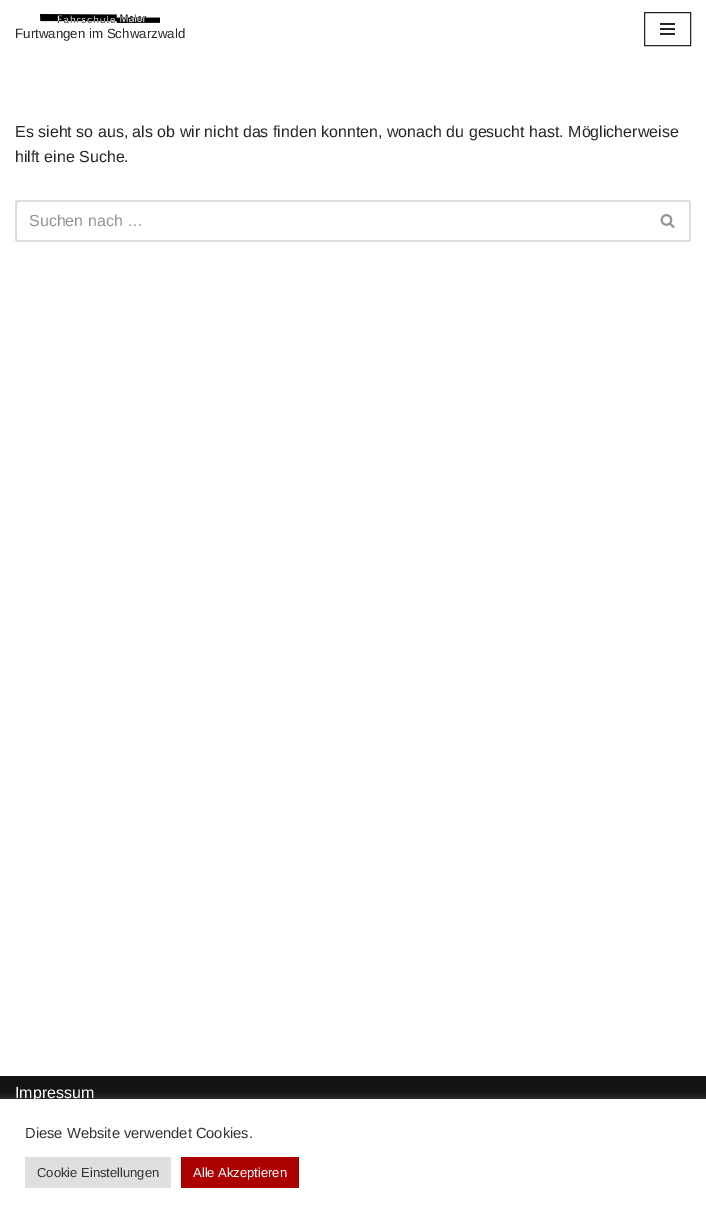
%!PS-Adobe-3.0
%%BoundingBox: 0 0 706 1218
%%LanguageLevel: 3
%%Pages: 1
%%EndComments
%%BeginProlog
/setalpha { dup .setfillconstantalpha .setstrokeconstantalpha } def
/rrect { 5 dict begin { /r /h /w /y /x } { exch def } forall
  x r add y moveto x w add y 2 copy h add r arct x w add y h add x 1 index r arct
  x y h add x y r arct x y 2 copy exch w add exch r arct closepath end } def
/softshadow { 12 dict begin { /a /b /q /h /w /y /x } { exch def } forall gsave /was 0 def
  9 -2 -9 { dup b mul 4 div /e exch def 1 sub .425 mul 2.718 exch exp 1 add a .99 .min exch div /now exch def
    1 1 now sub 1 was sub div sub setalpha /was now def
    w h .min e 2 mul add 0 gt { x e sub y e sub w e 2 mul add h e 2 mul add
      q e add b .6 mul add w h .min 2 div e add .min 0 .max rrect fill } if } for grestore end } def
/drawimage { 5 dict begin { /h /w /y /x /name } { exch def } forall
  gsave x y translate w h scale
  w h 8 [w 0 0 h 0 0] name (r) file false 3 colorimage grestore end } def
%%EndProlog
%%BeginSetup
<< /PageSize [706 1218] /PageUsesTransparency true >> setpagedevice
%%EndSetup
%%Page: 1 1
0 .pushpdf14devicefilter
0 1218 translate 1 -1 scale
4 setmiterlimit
1 setgray
0 0 706 1218 rectfill
(images/1.raw) 40 14 120 9 drawimage
0.153 0.149 0.149 setrgbcolor
644.5 12.5 46 33 rectstroke
660 23 15 2 rectfill
660 28 15 2 rectfill
660 33 15 2 rectfill
0.867 setgray
newpath 18 200 moveto 646 200 lineto 646 242 lineto 18 242 lineto 16 242 15 241 15 239 curveto 15 203 lineto 15 201 16 200 18 200 curveto closepath 18 202 moveto 646 202 lineto 646 240 lineto 18 240 lineto 17 239 lineto 17 234 16 203 18 202 curveto closepath eofill
newpath 646 200 moveto 688 200 lineto 690 200 691 201 691 203 curveto 691 239 lineto 691 241 690 242 688 242 curveto 646 242 lineto closepath 646 202 moveto 688 202 lineto 689 202 689 202 689 203 curveto 689 239 lineto 689 240 689 240 688 240 curveto 646 240 lineto closepath eofill
(images/2.raw) 660 214 15 14 drawimage
0.071 setgray
0 1076 706 23 rectfill
0.675 0.671 0.671 setrgbcolor
0 1098 706 119 0 5 0.3 softshadow
1 setgray
0 1099 706 119 rectfill
0.871 0.875 0.878 setrgbcolor
25 1157 146 31 rectfill
0.675 0 0 setrgbcolor
181 1157 118 31 rectfill
/LiberationSans-Regular [13.3 0 0 -13.3 0 0] selectfont
0.153 0.149 0.149 setrgbcolor
15 38 moveto (Furtwangen im Schwarzwald) show
/LiberationSans-Regular [16 0 0 -16 0 0] selectfont
15 137 moveto (Es sieht so aus, als ob wir nicht das finden konnten, wonach du gesucht hast. Möglicherweise) show
15 162 moveto (hilft eine Suche.) show
0.576 setgray
29 226 moveto (Suchen nach …) show
1 setgray
15 1098 moveto (Impressum) show
/LiberationSans-Regular [14.7 0 0 -14.7 0 0] selectfont
0.2 setgray
25 1138 moveto (Diese Website verwendet Cookies.) show
/LiberationSans-Regular [13 0 0 -13 0 0] selectfont
37 1177 moveto (Cookie Einstellungen) show
1 setgray
193 1177 moveto (Alle Akzeptieren) show
.poppdf14devicefilter showpage
%%EOF
